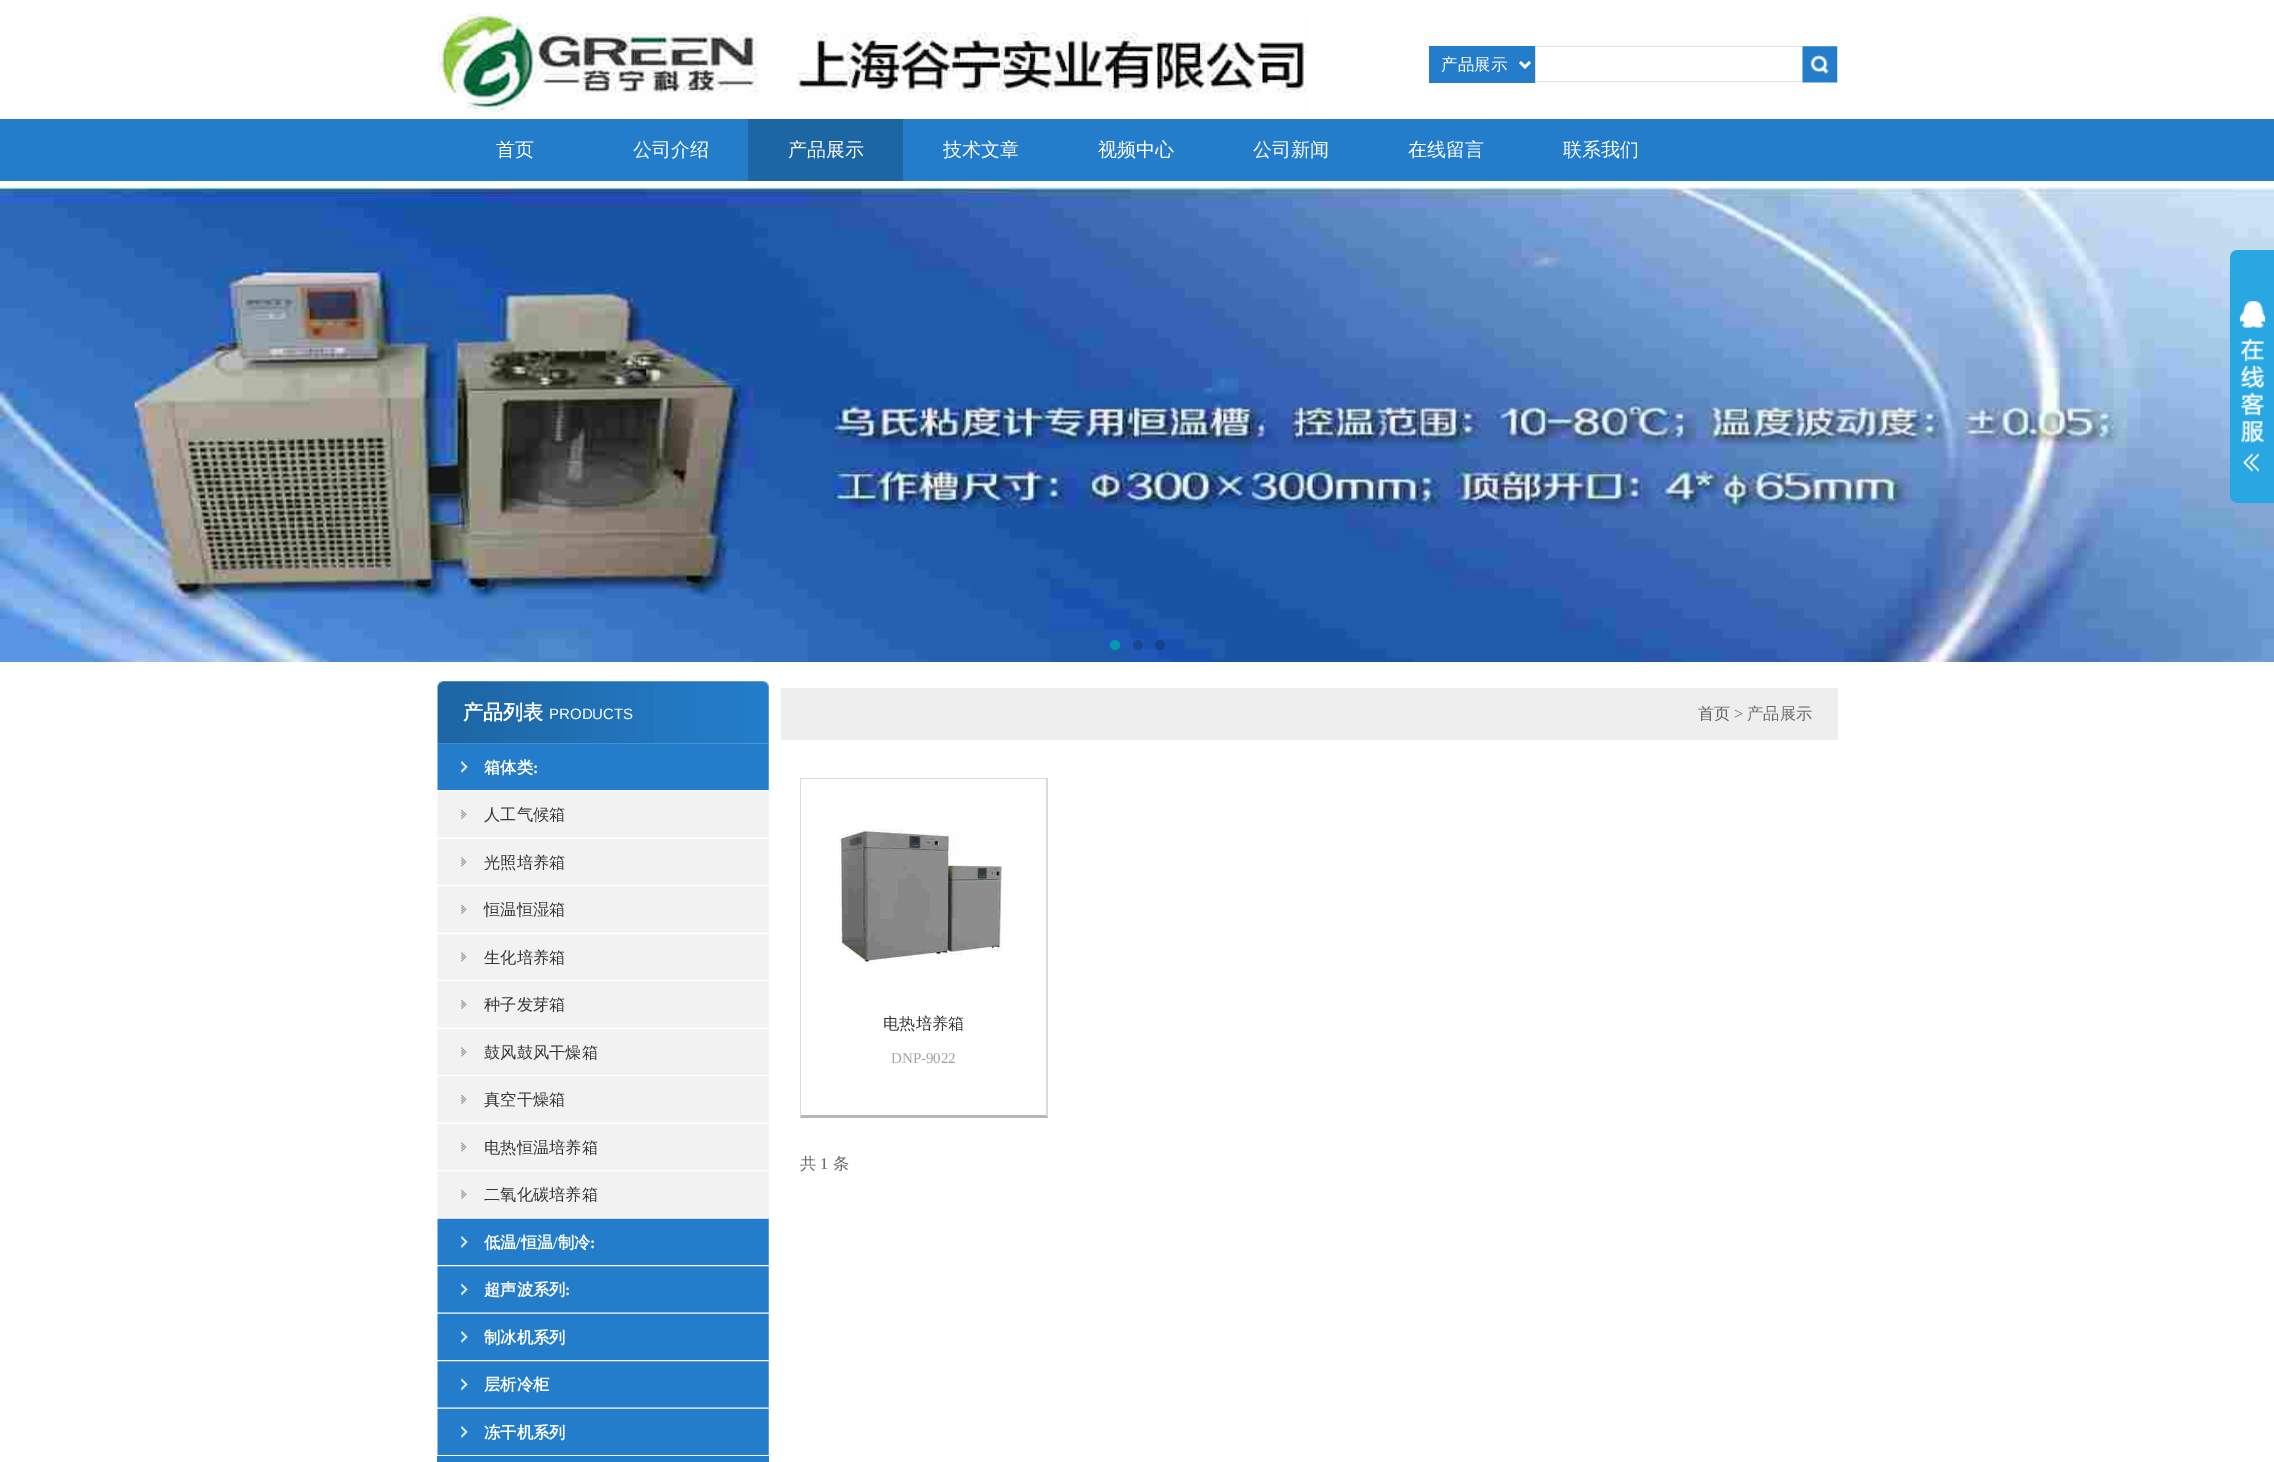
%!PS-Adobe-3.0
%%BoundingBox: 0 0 2274 1462
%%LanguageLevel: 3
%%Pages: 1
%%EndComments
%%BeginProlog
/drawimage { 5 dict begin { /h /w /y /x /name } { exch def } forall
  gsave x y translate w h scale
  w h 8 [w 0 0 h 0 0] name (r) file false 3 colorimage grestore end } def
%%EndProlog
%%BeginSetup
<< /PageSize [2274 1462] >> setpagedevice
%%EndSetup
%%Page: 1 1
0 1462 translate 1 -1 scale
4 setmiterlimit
1 setgray
0 0 2274 1462 rectfill
(images/1.raw) 437 12 871 101 drawimage
0.141 0.49 0.792 setrgbcolor
1429 46 106 37 rectfill
1 setgray
2.5 setlinewidth
newpath 1520 62 moveto 1525 67 lineto 1530 62 lineto stroke
0.882 setgray
1535 46 268 1 rectfill
1535 81 268 1 rectfill
1535 46 1 37 rectfill
(images/2.raw) 1802 46 36 37 drawimage
0.141 0.49 0.792 setrgbcolor
0 119 2274 62 rectfill
0.114 0.4 0.643 setrgbcolor
748 119 155 62 rectfill
(images/3.raw) 0 187 2274 475 drawimage
0 0.608 0.675 setrgbcolor
newpath 1115 645 5 0 360 arc closepath fill
0.102 0.275 0.573 setrgbcolor
newpath 1138 645 5 0 360 arc closepath fill
0.078 0.255 0.553 setrgbcolor
newpath 1160 645 5 0 360 arc closepath fill
0.161 0.655 0.886 setrgbcolor
newpath 2238 250 moveto 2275 250 lineto 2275 503 lineto 2238 503 lineto 2233.5 503 2230 499.5 2230 495 curveto 2230 258 lineto 2230 253.5 2233.5 250 2238 250 curveto closepath fill
(images/4.raw) 2239 301 27 171 drawimage
(images/5.raw) 437 681 332 63 drawimage
(images/6.raw) 437 743 332 47 drawimage
(images/7.raw) 437 791 332 47 drawimage
(images/8.raw) 437 839 332 46 drawimage
(images/7.raw) 437 886 332 47 drawimage
(images/8.raw) 437 934 332 46 drawimage
(images/7.raw) 437 981 332 47 drawimage
(images/8.raw) 437 1029 332 46 drawimage
(images/7.raw) 437 1076 332 47 drawimage
(images/8.raw) 437 1124 332 46 drawimage
(images/9.raw) 437 1171 332 47 drawimage
(images/10.raw) 437 1218 332 47 drawimage
(images/11.raw) 437 1266 332 47 drawimage
(images/10.raw) 437 1313 332 47 drawimage
(images/11.raw) 437 1361 332 47 drawimage
(images/10.raw) 437 1408 332 47 drawimage
0.141 0.49 0.792 setrgbcolor
437 1456 332 6 rectfill
0.933 setgray
781 688 1057 52 rectfill
0.855 setgray
800 778 248 1 rectfill
newpath 1048 778 moveto 1048 1118 lineto 1046 1115 lineto 1046 779 lineto closepath fill
0.718 setgray
newpath 1048 1118 moveto 800 1118 lineto 801 1115 lineto 1046 1115 lineto closepath fill
0.855 setgray
newpath 800 1118 moveto 800 778 lineto 801 779 lineto 801 1115 lineto closepath fill
(images/12.raw) 839 829 163 135 drawimage
/WenQuanYiZenHei-Medium [16.5 0 0 -16.5 0 0] selectfont
1 setgray
1441 70 moveto (产品展示) show
/WenQuanYiZenHei-Medium [19 0 0 -19 0 0] selectfont
496 156 moveto (首页) show
633 156 moveto (公司介绍) show
788 156 moveto (产品展示) show
943 156 moveto (技术文章) show
1098 156 moveto (视频中心) show
1253 156 moveto (公司新闻) show
1408 156 moveto (在线留言) show
1563 156 moveto (联系我们) show
/WenQuanYiZenHei-Bold [20 0 0 -20 0 0] selectfont
463 719 moveto (产品列表) show
/LiberationSans-Regular [15 0 0 -15 0 0] selectfont
549 719 moveto (PRODUCTS) show
/WenQuanYiZenHei-Bold [16.25 0 0 -16.25 0 0] selectfont
484 773 moveto (箱体类) show
/LiberationSerif-Bold [16.25 0 0 -16.25 0 0] selectfont
533 773 moveto (:) show
/WenQuanYiZenHei-Medium [16.25 0 0 -16.25 0 0] selectfont
0.208 setgray
484 820 moveto (人工气候箱) show
484 868 moveto (光照培养箱) show
484 915 moveto (恒温恒湿箱) show
484 963 moveto (生化培养箱) show
484 1010 moveto (种子发芽箱) show
484 1058 moveto (鼓风鼓风干燥箱) show
484 1105 moveto (真空干燥箱) show
484 1153 moveto (电热恒温培养箱) show
484 1200 moveto (二氧化碳培养箱) show
/WenQuanYiZenHei-Bold [16.25 0 0 -16.25 0 0] selectfont
1 setgray
484 1248 moveto (低温) show
/LiberationSerif-Bold [16.25 0 0 -16.25 0 0] selectfont
516 1248 moveto (/) show
/WenQuanYiZenHei-Bold [16.25 0 0 -16.25 0 0] selectfont
521 1248 moveto (恒温) show
/LiberationSerif-Bold [16.25 0 0 -16.25 0 0] selectfont
553 1248 moveto (/) show
/WenQuanYiZenHei-Bold [16.25 0 0 -16.25 0 0] selectfont
558 1248 moveto (制冷) show
/LiberationSerif-Bold [16.25 0 0 -16.25 0 0] selectfont
590 1248 moveto (:) show
/WenQuanYiZenHei-Bold [16.25 0 0 -16.25 0 0] selectfont
484 1295 moveto (超声波系列) show
/LiberationSerif-Bold [16.25 0 0 -16.25 0 0] selectfont
565 1295 moveto (:) show
/WenQuanYiZenHei-Bold [16.25 0 0 -16.25 0 0] selectfont
484 1343 moveto (制冰机系列) show
484 1390 moveto (层析冷柜) show
484 1438 moveto (冻干机系列) show
/WenQuanYiZenHei-Medium [16.25 0 0 -16.25 0 0] selectfont
0.408 setgray
1698 719 moveto (首页) show
/LiberationSerif-Regular [16.25 0 0 -16.25 0 0] selectfont
1734 719 moveto (>) show
/WenQuanYiZenHei-Medium [16.25 0 0 -16.25 0 0] selectfont
1747 719 moveto (产品展示) show
0.208 setgray
883 1029 moveto (电热培养箱) show
/LiberationSerif-Regular [15 0 0 -15 0 0] selectfont
0.631 setgray
891 1063 moveto (DNP-9022) show
/WenQuanYiZenHei-Medium [16.25 0 0 -16.25 0 0] selectfont
0.408 setgray
800 1169 moveto (共) show
/LiberationSerif-Regular [16.25 0 0 -16.25 0 0] selectfont
820 1169 moveto (1) show
/WenQuanYiZenHei-Medium [16.25 0 0 -16.25 0 0] selectfont
833 1169 moveto (条) show
showpage
%%EOF
